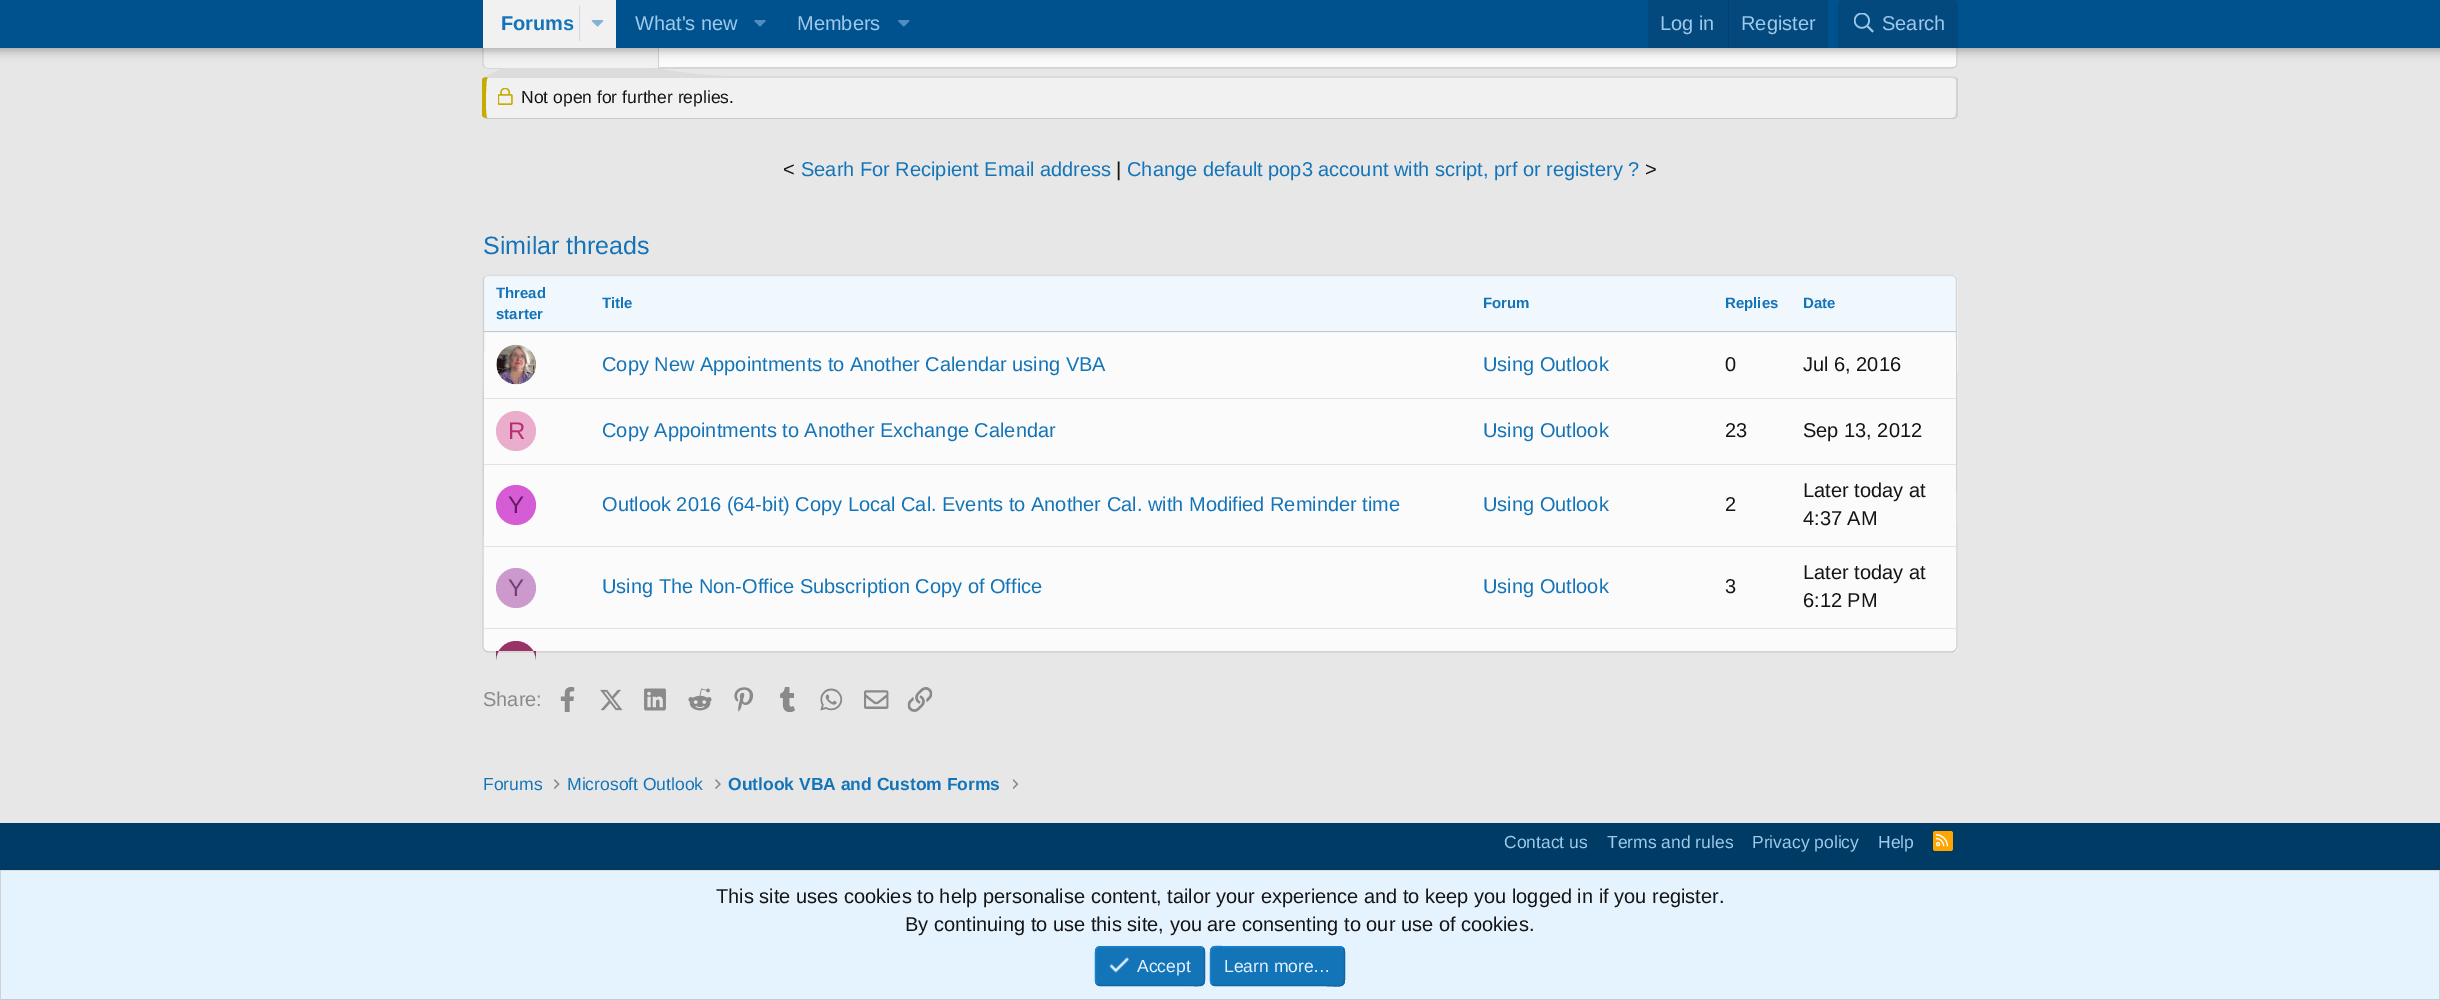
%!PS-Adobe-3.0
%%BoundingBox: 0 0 2440 1000
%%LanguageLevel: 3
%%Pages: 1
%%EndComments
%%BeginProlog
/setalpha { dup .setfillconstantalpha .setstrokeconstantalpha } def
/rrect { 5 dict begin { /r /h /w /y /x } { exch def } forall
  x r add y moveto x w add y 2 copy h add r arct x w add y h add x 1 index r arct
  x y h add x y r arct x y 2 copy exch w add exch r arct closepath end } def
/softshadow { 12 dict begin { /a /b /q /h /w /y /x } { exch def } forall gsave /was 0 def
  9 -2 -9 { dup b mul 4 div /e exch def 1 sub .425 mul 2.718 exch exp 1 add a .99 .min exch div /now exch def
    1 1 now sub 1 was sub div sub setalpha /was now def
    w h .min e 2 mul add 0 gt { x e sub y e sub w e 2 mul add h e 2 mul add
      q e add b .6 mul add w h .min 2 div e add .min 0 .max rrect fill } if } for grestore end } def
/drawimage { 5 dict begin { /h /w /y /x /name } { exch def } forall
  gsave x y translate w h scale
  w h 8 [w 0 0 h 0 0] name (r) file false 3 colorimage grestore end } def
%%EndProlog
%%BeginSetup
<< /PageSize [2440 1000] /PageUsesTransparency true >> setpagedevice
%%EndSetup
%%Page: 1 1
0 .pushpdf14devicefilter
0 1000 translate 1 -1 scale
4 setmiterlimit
0.906 setgray
0 0 2440 1000 rectfill
0.984 setgray
483 -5 1475 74 5 rrect fill
0.824 setgray
1.2 setlinewidth
newpath 1955.5 -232 moveto 1956.5 -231 1957 -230 1957 -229 curveto 1957 64 lineto 1957 65 1956.5 66 1955.5 67 curveto stroke
0.784 setgray
newpath 1955.5 67 moveto 1952.5 68 lineto 487.5 68 lineto 484.5 67 lineto stroke
0.824 setgray
newpath 484.5 67 moveto 483.5 66 483 65 483 64 curveto 483 -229 lineto 483 -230 483.5 -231 484.5 -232 curveto stroke
0.945 setgray
newpath 488 78 moveto 1952 78 lineto 1955 78 1956 79 1956 81 curveto 1956 114 lineto 1956 116 1955 118 1952 118 curveto 488 118 lineto 487 118 486 116 486 114 curveto 486 81 lineto 486 79 487 78 488 78 curveto closepath fill
0.863 setgray
newpath 488 78 moveto 485 77 lineto 555 35 649 76 731 76 curveto 1954 76 lineto 1956 77 lineto 1955 79 lineto 1952 78 lineto closepath fill
0.945 setgray
newpath 488 -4 moveto 659 -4 lineto 659 68 lineto 488 68 lineto 486 68 484 66 484 64 curveto 484 0 lineto 484 -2 486 -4 488 -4 curveto closepath fill
0.824 setgray
658 48 1 20 rectfill
0 setgray
-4 -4 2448 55 0 5 0.3 softshadow
0 0.322 0.561 setrgbcolor
0 0 2440 48 rectfill
0.945 setgray
483 0 133 48 rectfill
0.796 0.859 0.906 setrgbcolor
579 6 1 35 rectfill
(images/1.raw) 591 20 13 7 drawimage
(images/2.raw) 754 20 12 7 drawimage
(images/3.raw) 898 20 12 7 drawimage
0.012 0.286 0.49 setrgbcolor
1648 0 180 48 rectfill
0.024 0.255 0.427 setrgbcolor
1728 0 1 48 rectfill
0.012 0.286 0.49 setrgbcolor
newpath 1843 0 moveto 1953 0 lineto 1956 0 1958 2 1958 5 curveto 1958 48 lineto 1838 48 lineto 1838 5 lineto 1838 2 1840 0 1843 0 curveto closepath fill
(images/4.raw) 1854 13 20 20 drawimage
0.824 setgray
newpath 1958 116 moveto 1956 118 lineto 1955 117 lineto 1957 115 1956 83 1956 80 curveto 1955 79 lineto 1956 77 lineto 1958 79 lineto closepath fill
0.784 setgray
newpath 486 119 moveto 485 118 lineto 487 117 lineto 488 118 lineto 1952 118 lineto 1954 118 1955 117 1955 117 curveto 1956 118 lineto 1954 119 lineto closepath fill
0.773 0.675 0 setrgbcolor
newpath 482 79 moveto 485 77 lineto 488 78 lineto 487 79 lineto 486 80 485 115 487 117 curveto 485 118 lineto 482 116 lineto closepath fill
(images/5.raw) 498 88 15 17 drawimage
0.984 setgray
483 275 1475 378 5 rrect fill
0.863 setgray
newpath 484.5 277 moveto 487.5 275.5 lineto 1952.5 275.5 lineto 1955.5 277 lineto stroke
0.824 setgray
newpath 1955.5 277 moveto 1956.5 278.5 lineto 1957 586 lineto 1957 647.5 lineto 1955.5 650.5 lineto stroke
0.784 setgray
newpath 1955.5 650.5 moveto 1952.5 652 lineto 487.5 652 lineto 484.5 650.5 lineto stroke
0.824 setgray
newpath 484.5 650.5 moveto 483 647.5 lineto 483.5 278.5 lineto 484.5 277 lineto stroke
0.5 setalpha
0.898 0.953 1 setrgbcolor
newpath 488 276 moveto 589 276 lineto 589 333 lineto 484 333 lineto 484 280 lineto 484 278 486 276 488 276 curveto closepath fill
1 setalpha
0.784 setgray
484 331 105 1 rectfill
0.5 setalpha
0.898 0.953 1 setrgbcolor
589 276 881 57 rectfill
1 setalpha
0.784 setgray
589 331 881 1 rectfill
0.5 setalpha
0.898 0.953 1 setrgbcolor
1470 276 243 57 rectfill
1 setalpha
0.784 setgray
1470 331 243 1 rectfill
0.5 setalpha
0.898 0.953 1 setrgbcolor
1713 276 77 57 rectfill
1 setalpha
0.784 setgray
1713 331 77 1 rectfill
0.5 setalpha
0.898 0.953 1 setrgbcolor
newpath 1790 276 moveto 1952 276 lineto 1954 276 1956 278 1956 280 curveto 1956 333 lineto 1790 333 lineto closepath fill
1 setalpha
0.784 setgray
1790 331 166 1 rectfill
0.886 setgray
484 398 1472 1 rectfill
(images/6.raw) 496 344 40 41 drawimage
484 464 1472 1 rectfill
0.922 0.678 0.8 setrgbcolor
newpath 516 431 20 0 360 arc closepath fill
0.886 setgray
484 546 1472 1 rectfill
0.839 0.361 0.839 setrgbcolor
newpath 516 505 20 0 360 arc closepath fill
0.886 setgray
484 628 1472 1 rectfill
0.8 0.6 0.8 setrgbcolor
newpath 516 588 20 0 360 arc closepath fill
0.6 0.2 0.4 setrgbcolor
newpath 516 641 moveto 527 641 536 650 536 661 curveto 536 651 lineto 496 651 lineto 496 661 lineto 496 650 505 641 516 641 curveto closepath fill
(images/7.raw) 560 687 15 25 drawimage
(images/8.raw) 600 689 23 22 drawimage
(images/9.raw) 644 688 22 23 drawimage
(images/10.raw) 688 688 24 23 drawimage
(images/11.raw) 734 687 20 25 drawimage
(images/12.raw) 780 687 15 25 drawimage
(images/13.raw) 820 688 23 23 drawimage
(images/14.raw) 864 690 25 19 drawimage
(images/15.raw) 907 687 26 25 drawimage
(images/16.raw) 554 779 6 10 drawimage
(images/17.raw) 715 779 6 10 drawimage
(images/18.raw) 1013 779 6 10 drawimage
0 0.231 0.4 setrgbcolor
0 823 2440 47 rectfill
1 0.647 0 setrgbcolor
1933 831 20 20 2.5 rrect fill
(images/19.raw) 1935 834 14 13 drawimage
0.898 0.953 1 setrgbcolor
1 871 2438 128 rectfill
0.863 setgray
0 870 2440 1 rectfill
0.824 setgray
2439 870 1 130 rectfill
0.784 setgray
0 999 2440 1 rectfill
0.824 setgray
0 870 1 130 rectfill
0.078 0.455 0.722 setrgbcolor
1095 946 110 40 5 rrect fill
0.071 0.396 0.631 setrgbcolor
newpath 1203 948 moveto 1205 950 1204.5 954 1204.5 956 curveto 1204.5 966 lineto 1204.5 989 1207.5 985.5 1183.5 985.5 curveto 1100 985.5 lineto 1097 984.5 lineto stroke
0.09 0.51 0.812 setrgbcolor
newpath 1097 984.5 moveto 1095 982.5 1095.5 978.5 1095.5 976 curveto 1095.5 966 lineto 1095.5 943.5 1092.5 947 1116.5 947 curveto 1200 947 lineto 1203 948 lineto stroke
(images/20.raw) 1109 957 20 16 drawimage
0.078 0.455 0.722 setrgbcolor
1210 946 135 40 5 rrect fill
0.071 0.396 0.631 setrgbcolor
newpath 1343 948 moveto 1345 950 1344.5 954 1344.5 956 curveto 1344.5 966 lineto 1344.5 991 1347 985.5 1319 985.5 curveto 1215 985.5 lineto 1212 984.5 lineto stroke
0.09 0.51 0.812 setrgbcolor
newpath 1212 984.5 moveto 1210 982.5 1210.5 978.5 1210.5 976 curveto 1210.5 966 lineto 1210.5 941.5 1208 947 1236 947 curveto 1340 947 lineto 1343 948 lineto stroke
/LiberationSans-Bold [20 0 0 -20 0 0] selectfont
0.078 0.455 0.722 setrgbcolor
501 30 moveto (Forums) show
/LiberationSans-Regular [20 0 0 -20 0 0] selectfont
0.624 0.788 0.918 setrgbcolor
635 30 moveto (What's new) show
797 30 moveto (Members) show
1660 30 moveto (Log in) show
1741 30 moveto (Register) show
1882 30 moveto (Search) show
/LiberationSans-Regular [17.5 0 0 -17.5 0 0] selectfont
0.078 setgray
521 103 moveto (Not open for further replies.) show
/LiberationSans-Regular [20 0 0 -20 0 0] selectfont
783 176 moveto (<) show
0.078 0.455 0.722 setrgbcolor
801 176 moveto (Searh For Recipient Email address) show
0.078 setgray
1116 176 moveto (|) show
0.078 0.455 0.722 setrgbcolor
1127 176 moveto (Change default pop3 account with script, prf or registery ?) show
0.078 setgray
1645 176 moveto (>) show
/LiberationSans-Regular [25 0 0 -25 0 0] selectfont
0.078 0.455 0.722 setrgbcolor
483 254 moveto (Similar threads) show
/LiberationSans-Bold [15 0 0 -15 0 0] selectfont
496 298 moveto (Thread) show
496 319 moveto (starter) show
602 308 moveto (Title) show
1483 308 moveto (Forum) show
1725 308 moveto (Replies) show
1803 308 moveto (Date) show
/LiberationSans-Regular [20 0 0 -20 0 0] selectfont
602 371 moveto (Copy New Appointments to Another Calendar using VBA) show
1483 371 moveto (Using Outlook) show
0.078 setgray
1725 371 moveto (0) show
1803 371 moveto (Jul 6, 2016) show
/LiberationSans-Regular [24 0 0 -24 0 0] selectfont
0.722 0.18 0.451 setrgbcolor
508 439 moveto (R) show
/LiberationSans-Regular [20 0 0 -20 0 0] selectfont
0.078 0.455 0.722 setrgbcolor
602 437 moveto (Copy Appointments to Another Exchange Calendar) show
1483 437 moveto (Using Outlook) show
0.078 setgray
1725 437 moveto (23) show
1803 437 moveto (Sep 13, 2012) show
/LiberationSans-Regular [24 0 0 -24 0 0] selectfont
0.4 0.102 0.4 setrgbcolor
508 513 moveto (Y) show
/LiberationSans-Regular [20 0 0 -20 0 0] selectfont
0.078 0.455 0.722 setrgbcolor
602 511 moveto (Outlook 2016 \(64-bit\) Copy Local Cal. Events to Another Cal. with Modified Reminder time) show
1483 511 moveto (Using Outlook) show
0.078 setgray
1725 511 moveto (2) show
1803 497 moveto (Later today at) show
1803 525 moveto (4:37 AM) show
/LiberationSans-Regular [24 0 0 -24 0 0] selectfont
0.467 0.235 0.467 setrgbcolor
508 596 moveto (Y) show
/LiberationSans-Regular [20 0 0 -20 0 0] selectfont
0.078 0.455 0.722 setrgbcolor
602 593 moveto (Using The Non-Office Subscription Copy of Office) show
1483 593 moveto (Using Outlook) show
0.078 setgray
1725 593 moveto (3) show
1803 579 moveto (Later today at) show
1803 607 moveto (6:12 PM) show
0.541 setgray
483 706 moveto (Share:) show
/LiberationSans-Regular [17.5 0 0 -17.5 0 0] selectfont
0.078 0.455 0.722 setrgbcolor
483 790 moveto (Forums) show
567 790 moveto (Microsoft Outlook) show
/LiberationSans-Bold [17.5 0 0 -17.5 0 0] selectfont
728 790 moveto (Outlook VBA and Custom Forms) show
/LiberationSans-Regular [17.5 0 0 -17.5 0 0] selectfont
0.624 0.788 0.918 setrgbcolor
1504 848 moveto (Contact us) show
1607 848 moveto (Terms and rules) show
1752 848 moveto (Privacy policy) show
1878 848 moveto (Help) show
/LiberationSans-Regular [20 0 0 -20 0 0] selectfont
0.078 setgray
716 903 moveto (This site uses cookies to help personalise content, tailor your experience and to keep you logged in if you register.) show
905 931 moveto (By continuing to use this site, you are consenting to our use of cookies.) show
/LiberationSans-Regular [17.5 0 0 -17.5 0 0] selectfont
0.898 0.953 1 setrgbcolor
1137 972 moveto (Accept) show
1224 972 moveto (Learn more…) show
.poppdf14devicefilter showpage
%%EOF
